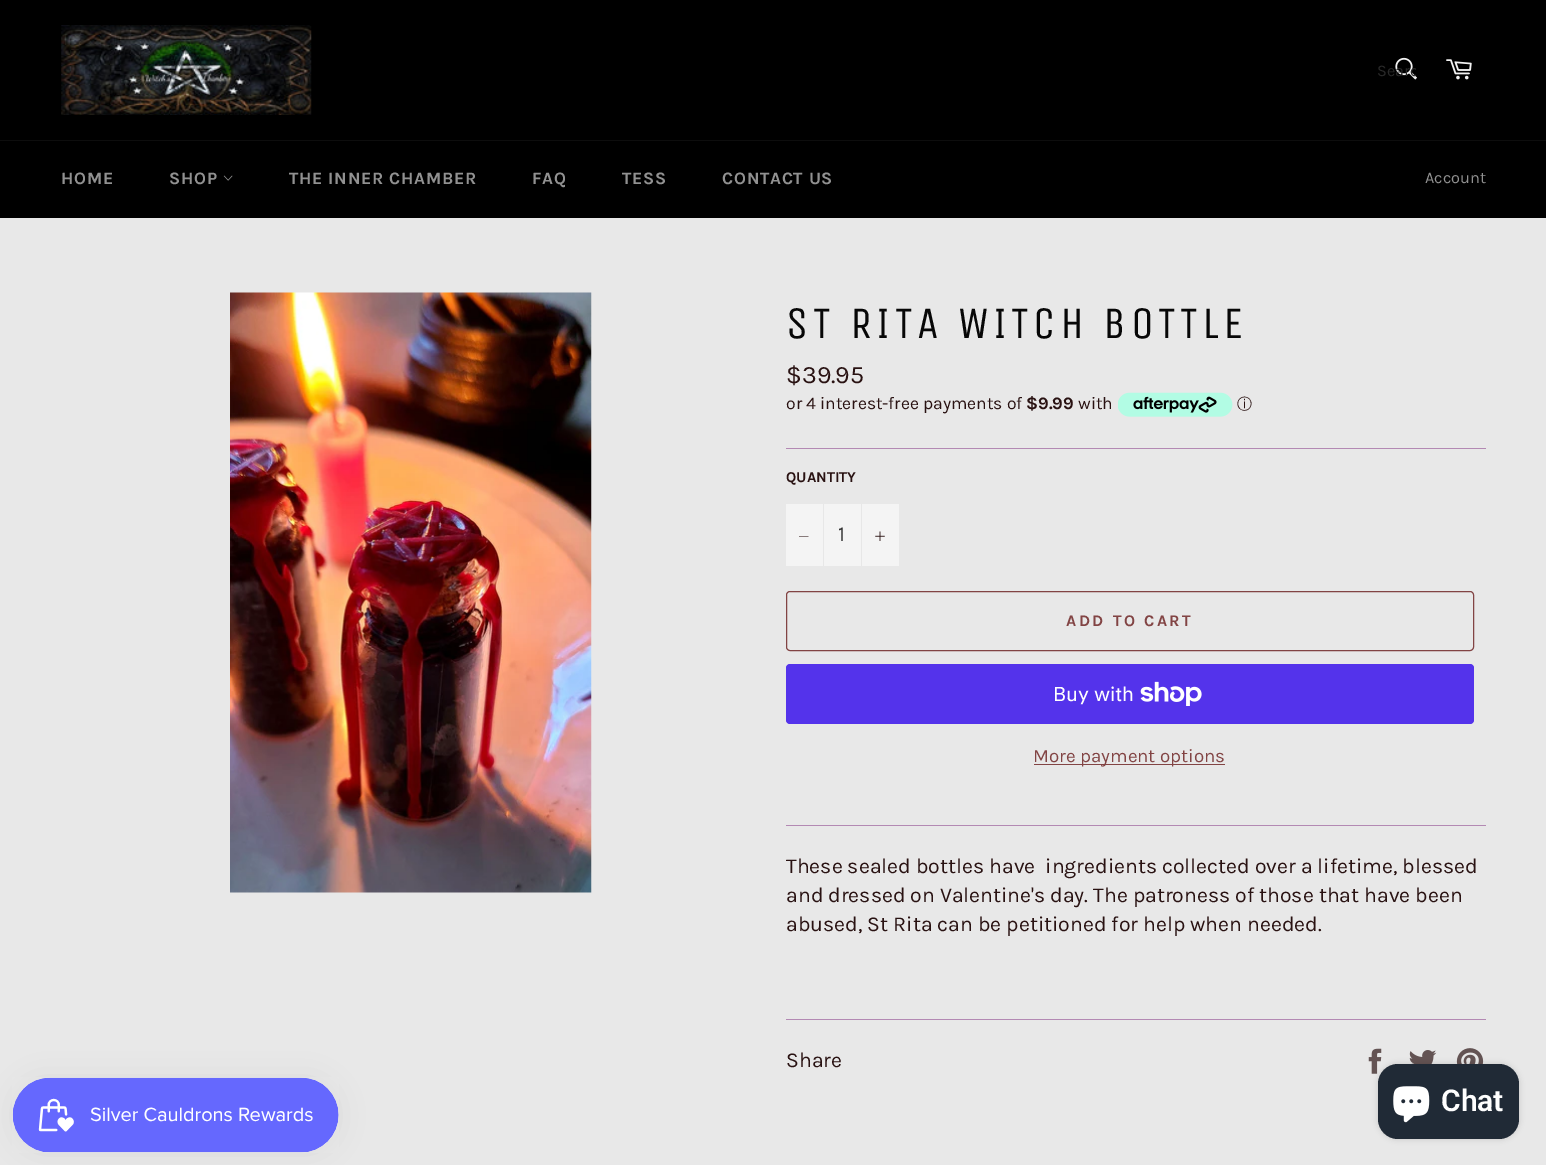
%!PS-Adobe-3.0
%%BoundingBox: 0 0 1546 1165
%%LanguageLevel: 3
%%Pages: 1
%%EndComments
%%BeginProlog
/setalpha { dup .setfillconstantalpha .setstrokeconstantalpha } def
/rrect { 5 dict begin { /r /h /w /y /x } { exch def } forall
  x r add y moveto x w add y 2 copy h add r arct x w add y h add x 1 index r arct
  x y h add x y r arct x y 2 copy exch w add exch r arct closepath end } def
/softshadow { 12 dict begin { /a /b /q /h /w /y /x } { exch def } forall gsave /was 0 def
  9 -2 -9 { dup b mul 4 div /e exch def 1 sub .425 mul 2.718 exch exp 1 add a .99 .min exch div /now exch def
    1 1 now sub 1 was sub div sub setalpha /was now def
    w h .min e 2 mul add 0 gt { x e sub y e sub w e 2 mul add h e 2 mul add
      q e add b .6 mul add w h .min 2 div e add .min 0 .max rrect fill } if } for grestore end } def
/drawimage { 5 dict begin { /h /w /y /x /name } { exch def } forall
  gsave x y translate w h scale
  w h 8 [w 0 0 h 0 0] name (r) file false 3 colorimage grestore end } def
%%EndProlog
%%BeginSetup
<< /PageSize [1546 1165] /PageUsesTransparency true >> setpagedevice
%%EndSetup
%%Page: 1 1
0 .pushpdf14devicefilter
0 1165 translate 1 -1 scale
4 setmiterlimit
0 setgray
0 0 1546 1165 rectfill
(images/1.raw) 61 25 251 90 drawimage
(images/2.raw) 1395 57 22 23 drawimage
(images/3.raw) 1446 59 26 21 drawimage
0.051 setgray
0 140 1546 1 rectfill
(images/4.raw) 223 175 10 6 drawimage
0.91 setgray
0 218 1546 947 rectfill
(images/5.raw) 230 292 362 601 drawimage
(images/6.raw) 1118 392 115 25 drawimage
0.702 0.537 0.702 setrgbcolor
786 448 700 1 rectfill
0.957 setgray
786 504 113 62 rectfill
0.906 setgray
823 504 1 62 rectfill
0.161 0.071 0.071 setrgbcolor
newpath 808.5 536 moveto 808.5 536.5 lineto 799 536.5 lineto 799 536 lineto closepath eofill
0.906 setgray
861 504 1 62 rectfill
(images/7.raw) 875 531 10 10 drawimage
0.51 0.267 0.267 setrgbcolor
786.5 591.5 687 59 3.5 rrect stroke
0.329 0.2 0.922 setrgbcolor
786 664 688 60 4 rrect fill
(images/8.raw) 1140 681 62 25 drawimage
0.51 0.267 0.267 setrgbcolor
1034 764 191 1 rectfill
0.702 0.537 0.702 setrgbcolor
786 825 700 1 rectfill
786 1019 700 1 rectfill
(images/9.raw) 1368 1048 14 26 drawimage
(images/10.raw) 1409 1050 28 14 drawimage
(images/11.raw) 1456 1048 28 16 drawimage
0 setgray
13 1078 326 75 37.5 15.5 0.05 softshadow
(images/12.raw) 12 1077 327 76 drawimage
1378 1064 141 75 20 3 0.15 softshadow
0.125 0.165 0.212 setrgbcolor
1378 1064 141 75 20 rrect fill
(images/13.raw) 1393 1086 37 37 drawimage
gsave
1376 61 40 19 rectclip
/Karla-Regular [16.25 0 0 -16.25 0 0] selectfont
0.161 setgray
1377 76 moveto (Searc) show
grestore
/Karla-Bold [17.5 0 0 -17.5 0 0] selectfont
0.569 setgray
61 184 moveto 0.75 0 (HOME) ashow
169 184 moveto 0.75 0 (SHOP) ashow
289 184 moveto 0.75 0 (THE INNER CHAMBER) ashow
532 184 moveto 0.75 0 (FAQ) ashow
622 184 moveto 0.75 0 (TESS) ashow
722 184 moveto 0.75 0 (CONTACT US) ashow
/Karla-Regular [16.25 0 0 -16.25 0 0] selectfont
1425 183 moveto (Account) show
/UnicaOne-Regular [45 0 0 -45 0 0] selectfont
0.027 setgray
786 338 moveto 4.5 0 (ST RITA WITCH BOTTLE) ashow
/Karla-Regular [25 0 0 -25 0 0] selectfont
0.161 0.071 0.071 setrgbcolor
786 383 moveto ($39.95) show
/Karla-Regular [17.5 0 0 -17.5 0 0] selectfont
786 409 moveto (or 4 interest-free payments of) show
/Karla-Bold [17.5 0 0 -17.5 0 0] selectfont
1026 409 moveto ($9.99) show
/Karla-Regular [17.5 0 0 -17.5 0 0] selectfont
1078 409 moveto (with) show
/WenQuanYiZenHei-Medium [15 0 0 -15 0 0] selectfont
1237 409 moveto (ⓘ) show
/Karla-Bold [15 0 0 -15 0 0] selectfont
786 482 moveto (QUANTITY) show
/Karla-Regular [21.25 0 0 -21.25 0 0] selectfont
0.2 setgray
838 541 moveto (1) show
/Karla-Bold [16.25 0 0 -16.25 0 0] selectfont
0.51 0.267 0.267 setrgbcolor
1066 626 moveto 2.5 0 (ADD TO CART) ashow
/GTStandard-Regular [20 0 0 -20 0 0] selectfont
1 setgray
1053 701 moveto (Buy with) show
/Karla-Regular [18.75 0 0 -18.75 0 0] selectfont
0.51 0.267 0.267 setrgbcolor
1033 762 moveto (More payment options) show
/Karla-Regular [21.25 0 0 -21.25 0 0] selectfont
0.161 0.071 0.071 setrgbcolor
786 873 moveto (These sealed bottles have  ingredients collected over a lifetime, blessed) show
786 902 moveto (and dressed on Valentine's day. The patroness of those that have been) show
786 931 moveto (abused, St Rita can be petitioned for help when needed.) show
786 1067 moveto (Share) show
/Roboto-SemiBold [30 0 0 -30 0 0] selectfont
1 setgray
1441 1111 moveto (Chat) show
.poppdf14devicefilter showpage
%%EOF
